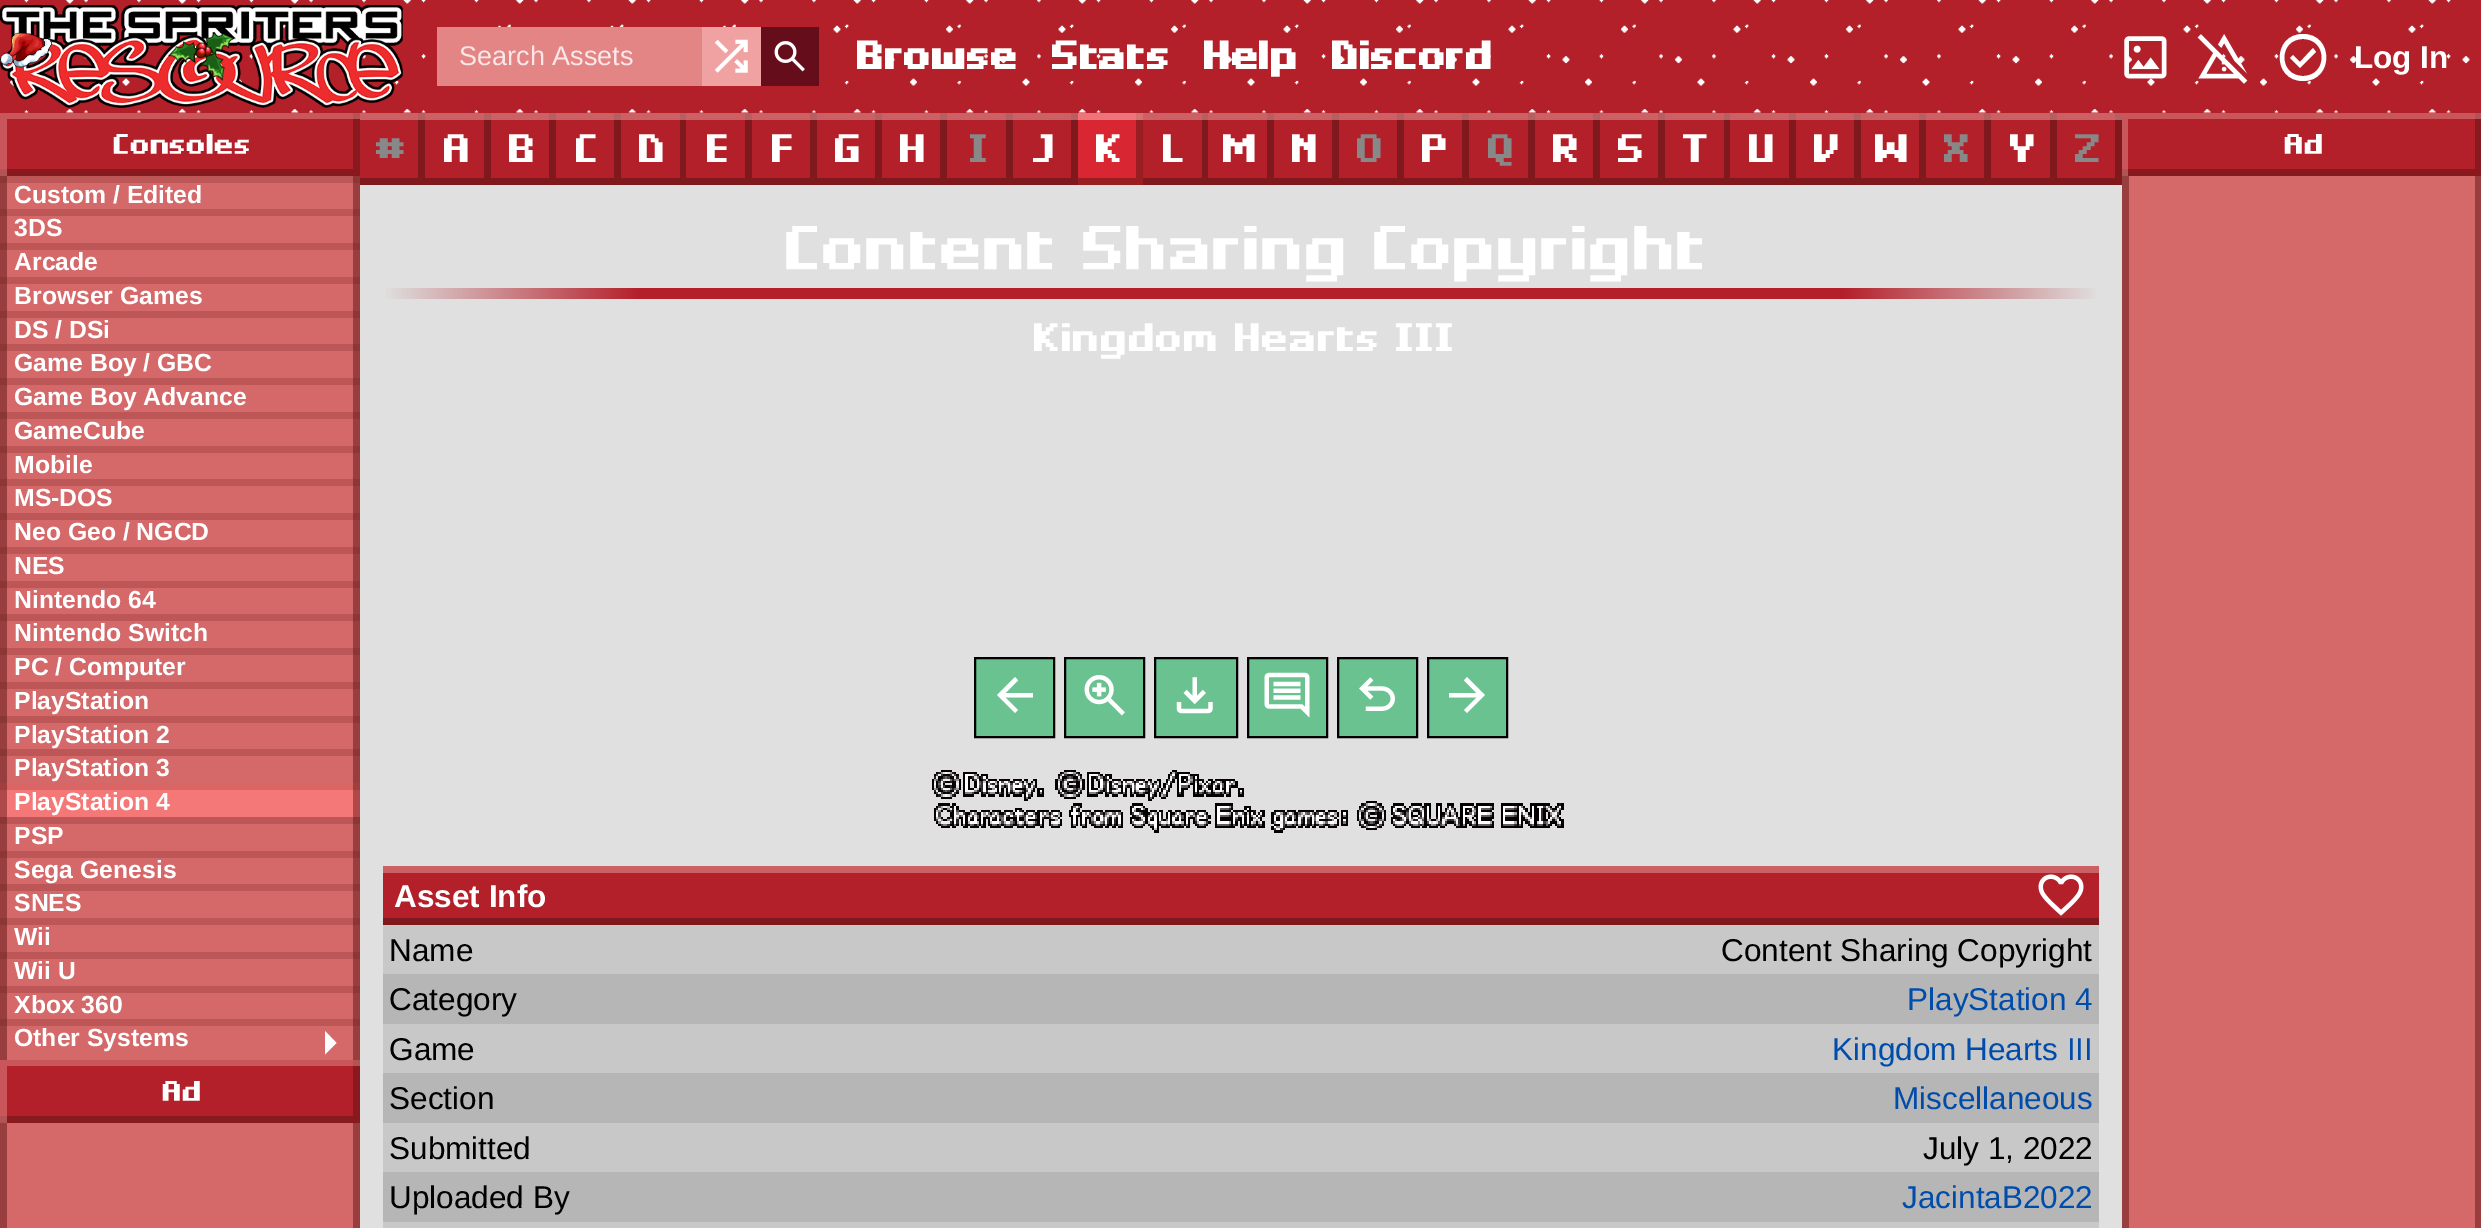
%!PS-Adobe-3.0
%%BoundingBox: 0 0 2481 1228
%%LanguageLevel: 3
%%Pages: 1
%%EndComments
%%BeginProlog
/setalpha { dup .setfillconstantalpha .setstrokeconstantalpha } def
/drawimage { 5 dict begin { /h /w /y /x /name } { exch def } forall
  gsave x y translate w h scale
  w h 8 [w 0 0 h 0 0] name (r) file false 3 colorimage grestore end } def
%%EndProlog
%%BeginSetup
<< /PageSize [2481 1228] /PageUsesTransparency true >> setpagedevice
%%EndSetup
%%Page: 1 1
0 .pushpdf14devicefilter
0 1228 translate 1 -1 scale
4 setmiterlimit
0.835 0.408 0.408 setrgbcolor
0 0 2481 1228 rectfill
0.706 0.125 0.165 setrgbcolor
0 0 2481 113 rectfill
(images/1.raw) 10 0 2460 113 drawimage
(images/2.raw) 0 5 403 103 drawimage
(images/3.raw) 0 31 235 50 drawimage
0.894 0.522 0.522 setrgbcolor
437 27 265 59 rectfill
0.941 0.635 0.635 setrgbcolor
702 27 59 59 rectfill
(images/4.raw) 714 39 34 34 drawimage
0.396 0.051 0.106 setrgbcolor
761 27 58 59 rectfill
(images/5.raw) 774 41 31 31 drawimage
(images/6.raw) 2124 36 43 43 drawimage
(images/7.raw) 2197 34 51 50 drawimage
1 setgray
newpath 2300 68 moveto 2316 52 lineto 2313 48 lineto 2300 62 lineto 2293 55 lineto 2290 58 lineto closepath 2303 81 moveto 2272 81 2272 34 2303 34 curveto 2334 34 2334 81 2303 81 curveto closepath 2303 76 moveto 2328 76 2328 39 2303 39 curveto 2278 39 2278 76 2303 76 curveto closepath 2303 57 moveto closepath fill
0.596 0.243 0.243 setrgbcolor
0 1123 7 105 rectfill
353 1123 7 105 rectfill
0.706 0.125 0.165 setrgbcolor
0 113 353 56 rectfill
gsave
0 113 360 63 rectclip
0.533 0.102 0.122 setrgbcolor
newpath -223 -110 moveto 583 -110 lineto 583 398 lineto -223 398 lineto closepath -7 106 moveto 353 106 lineto 353 169 lineto -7 169 lineto closepath eofill
0.5 setalpha
0.863 0.549 0.549 setrgbcolor
newpath -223 -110 moveto 583 -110 lineto 583 398 lineto -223 398 lineto closepath 7 119 moveto 367 119 lineto 367 182 lineto 7 182 lineto closepath eofill
grestore
0.596 0.243 0.243 setrgbcolor
0 176 7 506 rectfill
353 176 7 506 rectfill
0.2 setalpha
0.357 0.078 0.078 setrgbcolor
0 176 360 7 rectfill
0 209 360 7 rectfill
0 243 360 7 rectfill
0 277 360 7 rectfill
0 311 360 7 rectfill
0 344 360 7 rectfill
0 378 360 7 rectfill
0 412 360 7 rectfill
0 446 360 7 rectfill
0 479 360 7 rectfill
0 513 360 7 rectfill
0 547 360 7 rectfill
0 581 360 7 rectfill
0 614 360 7 rectfill
0 648 360 7 rectfill
1 setalpha
0.741 0.341 0.341 setrgbcolor
0 682 360 7 rectfill
0.596 0.243 0.243 setrgbcolor
0 682 7 101 rectfill
0.549 0.212 0.212 setrgbcolor
0 682 7 7 rectfill
0.596 0.243 0.243 setrgbcolor
353 682 7 101 rectfill
0.549 0.212 0.212 setrgbcolor
353 682 7 7 rectfill
0.2 setalpha
0.357 0.078 0.078 setrgbcolor
0 716 360 7 rectfill
0 749 360 7 rectfill
1 setalpha
0.961 0.471 0.471 setrgbcolor
7 783 346 34 rectfill
0.686 0.282 0.282 setrgbcolor
0 783 7 34 rectfill
353 783 7 34 rectfill
0.2 setalpha
0.412 0.09 0.09 setrgbcolor
0 783 360 7 rectfill
1 setalpha
0.596 0.243 0.243 setrgbcolor
0 817 7 243 rectfill
353 817 7 243 rectfill
0.2 setalpha
0.357 0.078 0.078 setrgbcolor
0 817 360 7 rectfill
0 851 360 7 rectfill
0 884 360 7 rectfill
0 918 360 7 rectfill
0 952 360 7 rectfill
0 986 360 7 rectfill
0 1019 360 7 rectfill
1 setalpha
1 setgray
newpath 325 1054.5 moveto 325 1031 lineto 336.5 1043 lineto closepath fill
0.706 0.125 0.165 setrgbcolor
0 1060 353 56 rectfill
gsave
0 1060 360 63 rectclip
0.533 0.102 0.122 setrgbcolor
newpath -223 837 moveto 583 837 lineto 583 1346 lineto -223 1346 lineto closepath -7 1053 moveto 353 1053 lineto 353 1116 lineto -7 1116 lineto closepath eofill
0.5 setalpha
0.863 0.549 0.549 setrgbcolor
newpath -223 837 moveto 583 837 lineto 583 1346 lineto -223 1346 lineto closepath 7 1066 moveto 367 1066 lineto 367 1130 lineto 7 1130 lineto closepath eofill
grestore
0.878 setgray
360 185 1762 1043 rectfill
0.706 0.125 0.165 setrgbcolor
360 113 1755 65 rectfill
gsave
360 113 65 72 rectclip
0.498 0.098 0.114 setrgbcolor
newpath 137 -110 moveto 648 -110 lineto 648 407 lineto 137 407 lineto closepath 353 106 moveto 418 106 lineto 418 178 lineto 353 178 lineto closepath eofill
grestore
0.6 setalpha
0.863 0.549 0.549 setrgbcolor
360 113 65 7 rectfill
gsave
425 113 66 72 rectclip
1 setalpha
0.498 0.098 0.114 setrgbcolor
newpath 202 -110 moveto 713 -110 lineto 713 407 lineto 202 407 lineto closepath 418 106 moveto 484 106 lineto 484 178 lineto 418 178 lineto closepath eofill
grestore
425 113 66 7 rectfill
gsave
491 113 65 72 rectclip
1 setalpha
0.498 0.098 0.114 setrgbcolor
newpath 268 -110 moveto 778 -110 lineto 778 407 lineto 268 407 lineto closepath 484 106 moveto 549 106 lineto 549 178 lineto 484 178 lineto closepath eofill
grestore
491 113 65 7 rectfill
gsave
556 113 65 72 rectclip
1 setalpha
0.498 0.098 0.114 setrgbcolor
newpath 333 -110 moveto 844 -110 lineto 844 407 lineto 333 407 lineto closepath 549 106 moveto 614 106 lineto 614 178 lineto 549 178 lineto closepath eofill
grestore
556 113 65 7 rectfill
gsave
621 113 65 72 rectclip
1 setalpha
0.498 0.098 0.114 setrgbcolor
newpath 398 -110 moveto 909 -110 lineto 909 407 lineto 398 407 lineto closepath 614 106 moveto 680 106 lineto 680 178 lineto 614 178 lineto closepath eofill
grestore
621 113 65 7 rectfill
gsave
686 113 66 72 rectclip
1 setalpha
0.498 0.098 0.114 setrgbcolor
newpath 464 -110 moveto 974 -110 lineto 974 407 lineto 464 407 lineto closepath 680 106 moveto 745 106 lineto 745 178 lineto 680 178 lineto closepath eofill
grestore
686 113 66 7 rectfill
gsave
752 113 65 72 rectclip
1 setalpha
0.498 0.098 0.114 setrgbcolor
newpath 529 -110 moveto 1040 -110 lineto 1040 407 lineto 529 407 lineto closepath 745 106 moveto 810 106 lineto 810 178 lineto 745 178 lineto closepath eofill
grestore
752 113 65 7 rectfill
gsave
817 113 65 72 rectclip
1 setalpha
0.498 0.098 0.114 setrgbcolor
newpath 594 -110 moveto 1105 -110 lineto 1105 407 lineto 594 407 lineto closepath 810 106 moveto 875 106 lineto 875 178 lineto 810 178 lineto closepath eofill
grestore
817 113 65 7 rectfill
gsave
882 113 65 72 rectclip
1 setalpha
0.498 0.098 0.114 setrgbcolor
newpath 659 -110 moveto 1170 -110 lineto 1170 407 lineto 659 407 lineto closepath 875 106 moveto 940 106 lineto 940 178 lineto 875 178 lineto closepath eofill
grestore
882 113 65 7 rectfill
gsave
947 113 66 72 rectclip
1 setalpha
0.498 0.098 0.114 setrgbcolor
newpath 724 -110 moveto 1235 -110 lineto 1235 407 lineto 724 407 lineto closepath 940 106 moveto 1006 106 lineto 1006 178 lineto 940 178 lineto closepath eofill
grestore
947 113 66 7 rectfill
gsave
1013 113 65 72 rectclip
1 setalpha
0.498 0.098 0.114 setrgbcolor
newpath 790 -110 moveto 1300 -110 lineto 1300 407 lineto 790 407 lineto closepath 1006 106 moveto 1071 106 lineto 1071 178 lineto 1006 178 lineto closepath eofill
grestore
1013 113 65 7 rectfill
1 setalpha
0.847 0.149 0.196 setrgbcolor
1078 113 58 65 rectfill
gsave
1078 113 65 72 rectclip
0.596 0.118 0.133 setrgbcolor
newpath 855 -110 moveto 1366 -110 lineto 1366 407 lineto 855 407 lineto closepath 1071 106 moveto 1136 106 lineto 1136 178 lineto 1071 178 lineto closepath eofill
grestore
0.6 setalpha
1 0.659 0.659 setrgbcolor
1078 113 65 7 rectfill
gsave
1143 113 65 72 rectclip
1 setalpha
0.498 0.098 0.114 setrgbcolor
newpath 920 -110 moveto 1431 -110 lineto 1431 407 lineto 920 407 lineto closepath 1136 106 moveto 1202 106 lineto 1202 178 lineto 1136 178 lineto closepath eofill
grestore
0.863 0.549 0.549 setrgbcolor
1143 113 65 7 rectfill
gsave
1208 113 66 72 rectclip
1 setalpha
0.498 0.098 0.114 setrgbcolor
newpath 986 -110 moveto 1496 -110 lineto 1496 407 lineto 986 407 lineto closepath 1202 106 moveto 1267 106 lineto 1267 178 lineto 1202 178 lineto closepath eofill
grestore
1208 113 66 7 rectfill
gsave
1274 113 65 72 rectclip
1 setalpha
0.498 0.098 0.114 setrgbcolor
newpath 1051 -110 moveto 1562 -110 lineto 1562 407 lineto 1051 407 lineto closepath 1267 106 moveto 1332 106 lineto 1332 178 lineto 1267 178 lineto closepath eofill
grestore
1274 113 65 7 rectfill
gsave
1339 113 65 72 rectclip
1 setalpha
0.498 0.098 0.114 setrgbcolor
newpath 1116 -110 moveto 1627 -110 lineto 1627 407 lineto 1116 407 lineto closepath 1332 106 moveto 1397 106 lineto 1397 178 lineto 1332 178 lineto closepath eofill
grestore
1339 113 65 7 rectfill
gsave
1404 113 65 72 rectclip
1 setalpha
0.498 0.098 0.114 setrgbcolor
newpath 1181 -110 moveto 1692 -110 lineto 1692 407 lineto 1181 407 lineto closepath 1397 106 moveto 1462 106 lineto 1462 178 lineto 1397 178 lineto closepath eofill
grestore
1404 113 65 7 rectfill
gsave
1469 113 66 72 rectclip
1 setalpha
0.498 0.098 0.114 setrgbcolor
newpath 1246 -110 moveto 1757 -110 lineto 1757 407 lineto 1246 407 lineto closepath 1462 106 moveto 1528 106 lineto 1528 178 lineto 1462 178 lineto closepath eofill
grestore
1469 113 66 7 rectfill
gsave
1535 113 65 72 rectclip
1 setalpha
0.498 0.098 0.114 setrgbcolor
newpath 1312 -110 moveto 1822 -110 lineto 1822 407 lineto 1312 407 lineto closepath 1528 106 moveto 1593 106 lineto 1593 178 lineto 1528 178 lineto closepath eofill
grestore
1535 113 65 7 rectfill
gsave
1600 113 65 72 rectclip
1 setalpha
0.498 0.098 0.114 setrgbcolor
newpath 1377 -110 moveto 1888 -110 lineto 1888 407 lineto 1377 407 lineto closepath 1593 106 moveto 1658 106 lineto 1658 178 lineto 1593 178 lineto closepath eofill
grestore
1600 113 65 7 rectfill
gsave
1665 113 65 72 rectclip
1 setalpha
0.498 0.098 0.114 setrgbcolor
newpath 1442 -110 moveto 1953 -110 lineto 1953 407 lineto 1442 407 lineto closepath 1658 106 moveto 1724 106 lineto 1724 178 lineto 1658 178 lineto closepath eofill
grestore
1665 113 65 7 rectfill
gsave
1730 113 66 72 rectclip
1 setalpha
0.498 0.098 0.114 setrgbcolor
newpath 1508 -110 moveto 2018 -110 lineto 2018 407 lineto 1508 407 lineto closepath 1724 106 moveto 1789 106 lineto 1789 178 lineto 1724 178 lineto closepath eofill
grestore
1730 113 66 7 rectfill
gsave
1796 113 65 72 rectclip
1 setalpha
0.498 0.098 0.114 setrgbcolor
newpath 1573 -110 moveto 2084 -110 lineto 2084 407 lineto 1573 407 lineto closepath 1789 106 moveto 1854 106 lineto 1854 178 lineto 1789 178 lineto closepath eofill
grestore
1796 113 65 7 rectfill
gsave
1861 113 65 72 rectclip
1 setalpha
0.498 0.098 0.114 setrgbcolor
newpath 1638 -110 moveto 2149 -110 lineto 2149 407 lineto 1638 407 lineto closepath 1854 106 moveto 1919 106 lineto 1919 178 lineto 1854 178 lineto closepath eofill
grestore
1861 113 65 7 rectfill
gsave
1926 113 65 72 rectclip
1 setalpha
0.498 0.098 0.114 setrgbcolor
newpath 1703 -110 moveto 2214 -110 lineto 2214 407 lineto 1703 407 lineto closepath 1919 106 moveto 1984 106 lineto 1984 178 lineto 1919 178 lineto closepath eofill
grestore
1926 113 65 7 rectfill
gsave
1991 113 66 72 rectclip
1 setalpha
0.498 0.098 0.114 setrgbcolor
newpath 1768 -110 moveto 2279 -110 lineto 2279 407 lineto 1768 407 lineto closepath 1984 106 moveto 2050 106 lineto 2050 178 lineto 1984 178 lineto closepath eofill
grestore
1991 113 66 7 rectfill
gsave
2057 113 65 72 rectclip
1 setalpha
0.498 0.098 0.114 setrgbcolor
newpath 1834 -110 moveto 2344 -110 lineto 2344 407 lineto 1834 407 lineto closepath 2050 106 moveto 2115 106 lineto 2115 178 lineto 2050 178 lineto closepath eofill
grestore
2057 113 65 7 rectfill
1 setalpha
gsave newpath 386 288 moveto 2096 288 lineto 2096 299 lineto 386 299 lineto closepath clip newpath
<< /ShadingType 2 /ColorSpace /DeviceRGB /Coords [383 294 2099 294] /Extend [true true] /Function << /FunctionType 3 /Domain [0 1] /Functions [<< /FunctionType 2 /Domain [0 1] /C0 [0.878 0.878 0.878] /C1 [0.706 0.125 0.165] /N 1 >> << /FunctionType 2 /Domain [0 1] /C0 [0.706 0.125 0.165] /C1 [0.706 0.125 0.165] /N 1 >> << /FunctionType 2 /Domain [0 1] /C0 [0.706 0.125 0.165] /C1 [0.878 0.878 0.878] /N 1 >>] /Bounds [0.15 0.85] /Encode [0 1 0 1 0 1] >> >> shfill grestore
0.412 0.761 0.565 setrgbcolor
newpath 975 658 moveto 1054 658 lineto 1054 737 lineto 975 737 lineto closepath gsave fill grestore
0 setgray
2 setlinewidth
stroke
1 setgray
newpath 1005.5 697.5 moveto 1018 710 lineto 1015 713 lineto 997 695 lineto 1015 677 lineto 1018 680.5 lineto 1005.5 693 lineto 1033 693 lineto 1033 697.5 lineto closepath fill
0.412 0.761 0.565 setrgbcolor
newpath 1065 658 moveto 1144 658 lineto 1144 737 lineto 1065 737 lineto closepath gsave fill grestore
0 setgray
stroke
(images/8.raw) 1084 675 41 41 drawimage
0.412 0.761 0.565 setrgbcolor
newpath 1155 658 moveto 1237 658 lineto 1237 737 lineto 1155 737 lineto closepath gsave fill grestore
0 setgray
stroke
(images/9.raw) 1176 677 37 37 drawimage
0.412 0.761 0.565 setrgbcolor
newpath 1248 658 moveto 1327 658 lineto 1327 737 lineto 1248 737 lineto closepath gsave fill grestore
0 setgray
stroke
(images/10.raw) 1264 672 46 46 drawimage
0.412 0.761 0.565 setrgbcolor
newpath 1338 658 moveto 1417 658 lineto 1417 737 lineto 1338 737 lineto closepath gsave fill grestore
0 setgray
stroke
(images/11.raw) 1359 677 36 34 drawimage
0.412 0.761 0.565 setrgbcolor
newpath 1428 658 moveto 1507 658 lineto 1507 737 lineto 1428 737 lineto closepath gsave fill grestore
0 setgray
stroke
1 setgray
newpath 1476.5 697.5 moveto 1449 697.5 lineto 1449 693 lineto 1476.5 693 lineto 1464 680.5 lineto 1467 677 lineto 1485 695 lineto 1467 713 lineto 1464 710 lineto closepath fill
(images/12.raw) 932 770 632 63 drawimage
0.706 0.125 0.165 setrgbcolor
383 873 1716 45 rectfill
0.498 0.098 0.114 setrgbcolor
383 918 1716 7 rectfill
0.8 0.38 0.396 setrgbcolor
383 866 1716 7 rectfill
(images/13.raw) 2038 874 46 42 drawimage
0.784 setgray
383 925 1716 49 rectfill
0.714 setgray
383 974 1716 50 rectfill
0.784 setgray
383 1024 1716 49 rectfill
0.714 setgray
383 1073 1716 50 rectfill
0.784 setgray
383 1123 1716 49 rectfill
0.714 setgray
383 1172 1716 50 rectfill
0.784 setgray
383 1222 1716 6 rectfill
0.596 0.243 0.243 setrgbcolor
2122 176 7 1052 rectfill
2475 176 6 1052 rectfill
0.706 0.125 0.165 setrgbcolor
2122 113 353 56 rectfill
gsave
2122 113 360 63 rectclip
0.533 0.102 0.122 setrgbcolor
newpath 1899 -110 moveto 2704 -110 lineto 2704 398 lineto 1899 398 lineto closepath 2115 106 moveto 2475 106 lineto 2475 169 lineto 2115 169 lineto closepath eofill
0.5 setalpha
0.863 0.549 0.549 setrgbcolor
newpath 1899 -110 moveto 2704 -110 lineto 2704 398 lineto 1899 398 lineto closepath 2128 119 moveto 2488 119 lineto 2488 182 lineto 2128 182 lineto closepath eofill
grestore
/LiberationSans-Regular [27 0 0 -27 0 0] selectfont
0.98 0.906 0.906 setrgbcolor
459 65 moveto (Search Assets) show
/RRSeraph-Bold [31.5 0 0 -31.5 0 0] selectfont
1 setgray
853 65 moveto (Browse) show
1048 65 moveto (Stats) show
1200 65 moveto (Help) show
1328 65 moveto (Discord) show
/LiberationSans-Bold [31.5 0 0 -31.5 0 0] selectfont
2354 68 moveto (Log In) show
/RRSeraph-Regular [22.5 0 0 -22.5 0 0] selectfont
111 151 moveto (Consoles) show
/LiberationSans-Bold [24.75 0 0 -24.75 0 0] selectfont
14 203 moveto (Custom / Edited) show
14 236 moveto (3DS) show
14 270 moveto (Arcade) show
14 304 moveto (Browser Games) show
14 338 moveto (DS / DSi) show
14 371 moveto (Game Boy / GBC) show
14 405 moveto (Game Boy Advance) show
14 439 moveto (GameCube) show
14 473 moveto (Mobile) show
14 506 moveto (MS-DOS) show
14 540 moveto (Neo Geo / NGCD) show
14 574 moveto (NES) show
14 608 moveto (Nintendo 64) show
14 641 moveto (Nintendo Switch) show
14 675 moveto (PC / Computer) show
14 709 moveto (PlayStation) show
14 743 moveto (PlayStation 2) show
14 776 moveto (PlayStation 3) show
14 810 moveto (PlayStation 4) show
14 844 moveto (PSP) show
14 878 moveto (Sega Genesis) show
14 911 moveto (SNES) show
14 945 moveto (Wii) show
14 979 moveto (Wii U) show
14 1013 moveto (Xbox 360) show
14 1046 moveto (Other Systems) show
/RRSeraph-Regular [22.5 0 0 -22.5 0 0] selectfont
160 1098 moveto (Ad) show
/RRSeraph-Regular [31.5 0 0 -31.5 0 0] selectfont
0.533 setgray
372 158 moveto (#) show
1 setgray
440 158 moveto (A) show
505 158 moveto (B) show
572 158 moveto (C) show
635 158 moveto (D) show
703 158 moveto (E) show
768 158 moveto (F) show
831 158 moveto (G) show
896 158 moveto (H) show
0.533 setgray
966 158 moveto (I) show
1 setgray
1029 158 moveto (J) show
1092 158 moveto (K) show
1159 158 moveto (L) show
1219 158 moveto (M) show
1288 158 moveto (N) show
0.533 setgray
1353 158 moveto (O) show
1 setgray
1418 158 moveto (P) show
0.533 setgray
1484 158 moveto (Q) show
1 setgray
1549 158 moveto (R) show
1614 158 moveto (S) show
1679 158 moveto (T) show
1745 158 moveto (U) show
1810 158 moveto (V) show
1871 158 moveto (W) show
0.533 setgray
1940 158 moveto (X) show
1 setgray
2006 158 moveto (Y) show
0.533 setgray
2071 158 moveto (Z) show
/RRSeraph-Regular [49.5 0 0 -49.5 0 0] selectfont
1 setgray
780 263 moveto (Content Sharing Copyright) show
/RRSeraph-Regular [31.5 0 0 -31.5 0 0] selectfont
1030 347 moveto (Kingdom Hearts III) show
/LiberationSans-Bold [31.5 0 0 -31.5 0 0] selectfont
394 907 moveto (Asset Info) show
/LiberationSans-Regular [31.5 0 0 -31.5 0 0] selectfont
0 setgray
389 961 moveto (Name) show
1721 961 moveto (Content Sharing Copyright) show
389 1010 moveto (Category) show
0 0.298 0.671 setrgbcolor
1907 1010 moveto (PlayStation 4) show
0 setgray
389 1060 moveto (Game) show
0 0.298 0.671 setrgbcolor
1832 1060 moveto (Kingdom Hearts III) show
0 setgray
389 1109 moveto (Section) show
0 0.298 0.671 setrgbcolor
1893 1109 moveto (Miscellaneous) show
0 setgray
389 1159 moveto (Submitted) show
1923 1159 moveto (July 1, 2022) show
389 1208 moveto (Uploaded By) show
0 0.298 0.671 setrgbcolor
1902 1208 moveto (JacintaB2022) show
/RRSeraph-Regular [22.5 0 0 -22.5 0 0] selectfont
1 setgray
2282 151 moveto (Ad) show
.poppdf14devicefilter showpage
%%EOF
